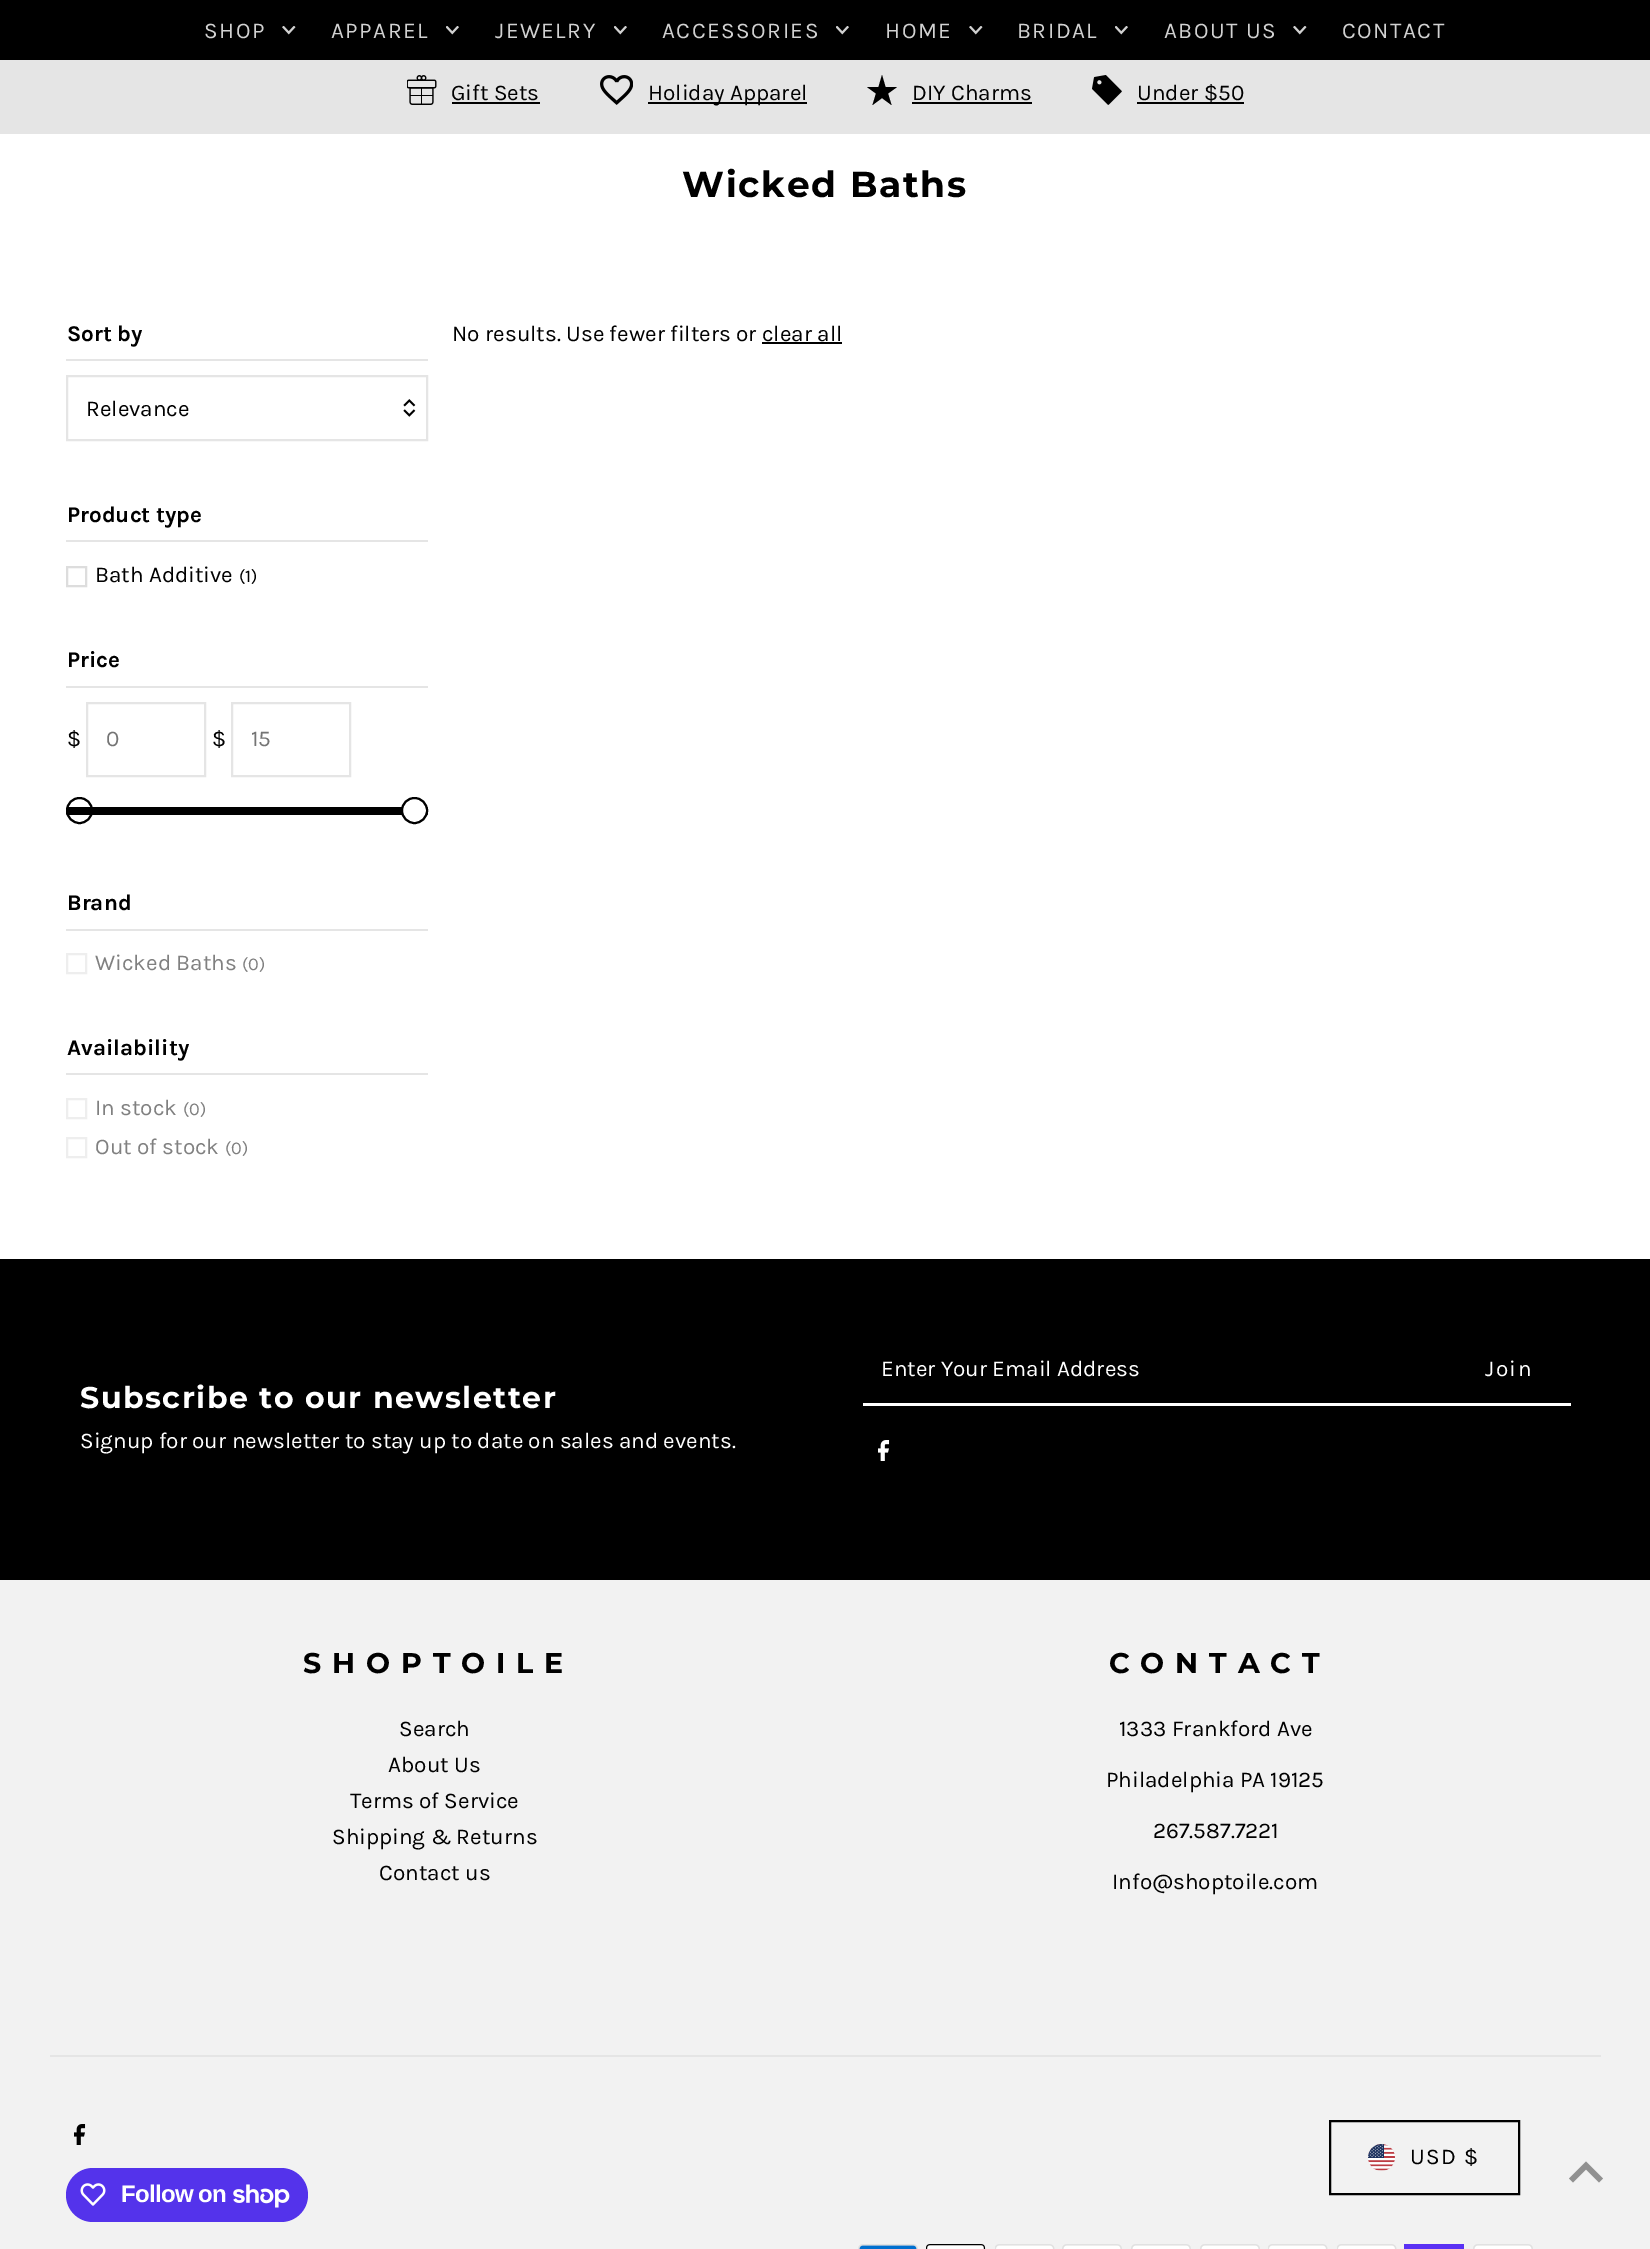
%!PS-Adobe-3.0
%%BoundingBox: 0 0 1650 2249
%%LanguageLevel: 3
%%Pages: 1
%%EndComments
%%BeginProlog
/rrect { 5 dict begin { /r /h /w /y /x } { exch def } forall
  x r add y moveto x w add y 2 copy h add r arct x w add y h add x 1 index r arct
  x y h add x y r arct x y 2 copy exch w add exch r arct closepath end } def
/drawimage { 5 dict begin { /h /w /y /x /name } { exch def } forall
  gsave x y translate w h scale
  w h 8 [w 0 0 h 0 0] name (r) file false 3 colorimage grestore end } def
%%EndProlog
%%BeginSetup
<< /PageSize [1650 2249] >> setpagedevice
%%EndSetup
%%Page: 1 1
0 2249 translate 1 -1 scale
4 setmiterlimit
1 setgray
0 0 1650 2249 rectfill
0 setgray
0 0 1650 60 rectfill
(images/1.raw) 282 26 14 9 drawimage
(images/2.raw) 446 26 13 9 drawimage
(images/2.raw) 614 26 13 9 drawimage
(images/2.raw) 836 26 13 9 drawimage
(images/1.raw) 969 26 14 9 drawimage
(images/2.raw) 1115 26 13 9 drawimage
(images/1.raw) 1293 26 14 9 drawimage
0.898 setgray
0 60 1650 74 rectfill
(images/3.raw) 407 75 30 30 drawimage
0 setgray
452 102 88 2 rectfill
(images/4.raw) 600 75 33 30 drawimage
648 102 159 2 rectfill
newpath 872.5 105 moveto 876 93.5 lineto 867 87 lineto 878.5 87 lineto 882 75 lineto 885.5 87 lineto 897 87 lineto 888 93.5 lineto 891.5 105 lineto 882 98 lineto closepath fill
912 102 120 2 rectfill
(images/5.raw) 1092 75 30 30 drawimage
1137 102 107 2 rectfill
0.898 setgray
66 359 362 2 rectfill
2 setlinewidth
67 376 360 64 rectstroke
(images/6.raw) 403 399 13 18 drawimage
66 540 362 2 rectfill
0.867 setgray
67 567 19 19 rectstroke
0.898 setgray
66 686 362 2 rectfill
87 703 118 73 rectstroke
232 703 118 73 rectstroke
0 setgray
newpath 79.5 810.5 12.5 0 360 arc closepath stroke
1 setgray
66 807 27 8 rectfill
0 setgray
66 807 362 8 1.5 rrect fill
1 setgray
newpath 414.5 810.5 12.5 0 360 arc closepath gsave fill grestore
0 setgray
stroke
0.898 setgray
66 929 362 2 rectfill
0.933 setgray
67 954 19 19 rectstroke
0.898 setgray
66 1073 362 2 rectfill
0.933 setgray
67 1099 19 19 rectstroke
67 1138 19 19 rectstroke
0 setgray
762 342 80 2 rectfill
0 1259 1650 321 rectfill
1 setgray
863 1403 708 3 rectfill
(images/7.raw) 878 1440 12 21 drawimage
0.949 setgray
0 1580 1650 669 rectfill
0.898 setgray
50 2055 1551 2 rectfill
0 setgray
1330 2121 189 73 rectstroke
(images/8.raw) 1368 2144 27 27 drawimage
(images/9.raw) 858 2244 60 5 drawimage
(images/10.raw) 926 2244 60 5 drawimage
(images/11.raw) 995 2244 60 5 drawimage
(images/12.raw) 1062 2244 60 5 drawimage
(images/12.raw) 1131 2244 60 5 drawimage
(images/12.raw) 1200 2244 60 5 drawimage
(images/11.raw) 1268 2244 60 5 drawimage
(images/11.raw) 1337 2244 60 5 drawimage
0.353 0.192 0.957 setrgbcolor
1404 2244 60 5 rectfill
(images/12.raw) 1473 2244 60 5 drawimage
(images/13.raw) 74 2124 12 21 drawimage
0.329 0.2 0.922 setrgbcolor
66 2168 242 54 27 rrect fill
(images/14.raw) 80 2183 26 23 drawimage
(images/15.raw) 233 2184 57 24 drawimage
0.569 setgray
newpath 1586 2161.5 moveto 1569 2178.5 lineto 1573 2182.5 lineto 1586 2169.5 lineto 1599 2182.5 lineto 1603 2178.5 lineto closepath fill
/Karla-Regular [22.5 0 0 -22.5 0 0] selectfont
0.82 setgray
204 38 moveto 1.5 0 (SHOP) ashow
331 38 moveto 1.5 0 (APPAREL) ashow
495 38 moveto 1.5 0 (JEWELRY) ashow
662 38 moveto 1.5 0 (ACCESSORIES) ashow
885 38 moveto 1.5 0 (HOME) ashow
1017 38 moveto 1.5 0 (BRIDAL) ashow
1164 38 moveto 1.5 0 (ABOUT US) ashow
1342 38 moveto 1.5 0 (CONTACT) ashow
0 setgray
451 100 moveto (Gift Sets) show
648 100 moveto (Holiday Apparel) show
912 100 moveto (DIY Charms) show
1137 100 moveto (Under $50) show
/Montserrat-Bold [36 0 0 -36 0 0] selectfont
682 197 moveto 1.75 0 (Wicked Baths) ashow
/Karla-Bold [22.5 0 0 -22.5 0 0] selectfont
67 341 moveto (Sort by) show
/Karla-Regular [22.5 0 0 -22.5 0 0] selectfont
86 416 moveto (Relevance) show
/Karla-Bold [22.5 0 0 -22.5 0 0] selectfont
67 522 moveto (Product type) show
/Karla-Regular [22.5 0 0 -22.5 0 0] selectfont
95 582 moveto (Bath Additive) show
/Karla-Regular [18 0 0 -18 0 0] selectfont
239 582 moveto (\(1\)) show
/Karla-Bold [22.5 0 0 -22.5 0 0] selectfont
67 667 moveto (Price) show
/Karla-Regular [22.5 0 0 -22.5 0 0] selectfont
67 746 moveto ($) show
0.459 setgray
106 746 moveto (0) show
0 setgray
212 746 moveto ($) show
0.459 setgray
251 746 moveto (15) show
/Karla-Bold [22.5 0 0 -22.5 0 0] selectfont
0 setgray
67 910 moveto (Brand) show
/Karla-Regular [22.5 0 0 -22.5 0 0] selectfont
0.502 setgray
95 970 moveto (Wicked Baths) show
/Karla-Regular [18 0 0 -18 0 0] selectfont
242 970 moveto (\(0\)) show
/Karla-Bold [22.5 0 0 -22.5 0 0] selectfont
0 setgray
67 1055 moveto (Availability) show
/Karla-Regular [22.5 0 0 -22.5 0 0] selectfont
0.502 setgray
95 1115 moveto (In stock) show
/Karla-Regular [18 0 0 -18 0 0] selectfont
183 1115 moveto (\(0\)) show
/Karla-Regular [22.5 0 0 -22.5 0 0] selectfont
95 1154 moveto (Out of stock) show
/Karla-Regular [18 0 0 -18 0 0] selectfont
225 1154 moveto (\(0\)) show
/Karla-Regular [22.5 0 0 -22.5 0 0] selectfont
0 setgray
452 341 moveto (No results. Use fewer filters or clear all) show
1 setgray
881 1376 moveto (Enter Your Email Address) show
1485 1376 moveto 1.5 0 (Join) ashow
/Montserrat-Bold [30 0 0 -30 0 0] selectfont
80 1408 moveto 1.5 0 (Subscribe to our newsletter) ashow
/Karla-Regular [22.5 0 0 -22.5 0 0] selectfont
80 1448 moveto (Signup for our newsletter to stay up to date on sales and events.) show
/Montserrat-Bold [28.5 0 0 -28.5 0 0] selectfont
0 setgray
303 1673 moveto 1.4 0 (S H O P T O I L E) ashow
/Karla-Regular [22.5 0 0 -22.5 0 0] selectfont
399 1736 moveto (Search) show
388 1772 moveto (About Us) show
350 1808 moveto (Terms of Service) show
332 1844 moveto (Shipping & Returns) show
379 1880 moveto (Contact us) show
/Montserrat-Bold [28.5 0 0 -28.5 0 0] selectfont
1109 1673 moveto 1.4 0 (C O N T A C T) ashow
/Karla-Regular [22.5 0 0 -22.5 0 0] selectfont
1119 1736 moveto (1333 Frankford Ave) show
1106 1787 moveto (Philadelphia PA 19125) show
1153 1838 moveto (267.587.7221) show
1112 1889 moveto (Info@shoptoile.com) show
1410 2164 moveto 1.5 0 (USD $) ashow
/LiberationSans-Bold [24 0 0 -24 0 0] selectfont
1 setgray
121 2202 moveto -0.75 0 (Follow on) ashow
showpage
%%EOF
